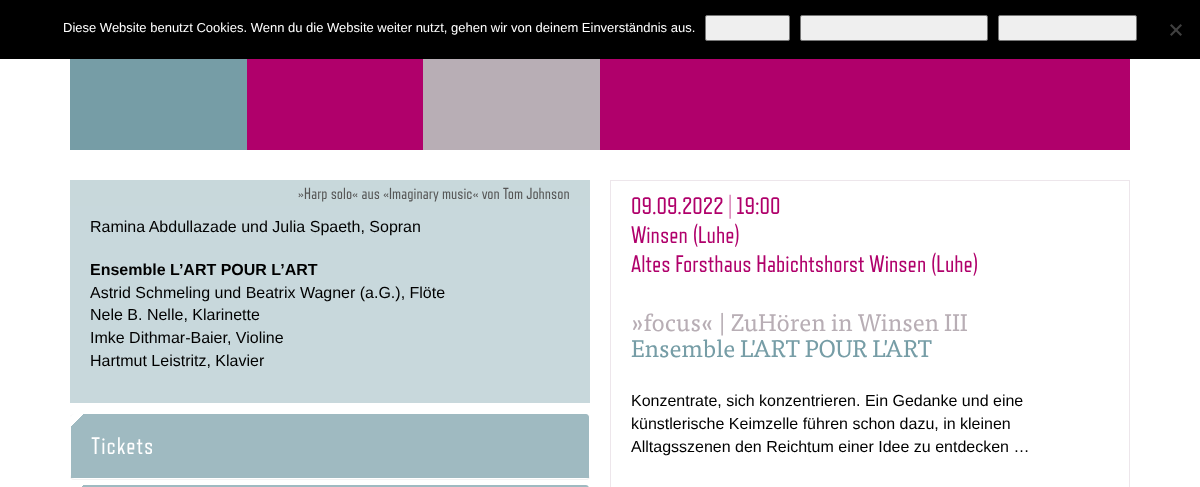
<svg xmlns="http://www.w3.org/2000/svg" width="1200" height="487" viewBox="0 0 1200 487">
  <style>
    .t1 { font: 13px Liberation Sans; fill: #fff; }
    .t2 { font: 16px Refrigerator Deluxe; fill: #555; }
    .t3 { font: 16px Liberation Sans; fill: #000; }
    .t4 { font: bold 16px Liberation Sans; fill: #000; }
    .t5 { font: 24px Refrigerator Deluxe; letter-spacing: 1px; fill: #fff; }
    .t6 { font: 24px Refrigerator Deluxe; fill: #b0006b; }
    .t7 { font: 24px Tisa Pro; fill: #b8aeb5; }
    .t8 { font: 24px Tisa Pro; fill: #769da6; }
  </style>
  <defs>
    <linearGradient id="g1" gradientUnits="userSpaceOnUse" x1="77" y1="-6.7" x2="240" y2="157"><stop offset="0.03" stop-color="#fff"/><stop offset="0.03" stop-color="#769da6"/></linearGradient>
    <linearGradient id="g2" gradientUnits="userSpaceOnUse" x1="254" y1="-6.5" x2="417" y2="157"><stop offset="0.03" stop-color="#fff"/><stop offset="0.03" stop-color="#b0006b"/></linearGradient>
    <linearGradient id="g3" gradientUnits="userSpaceOnUse" x1="430" y1="-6.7" x2="593" y2="157"><stop offset="0.03" stop-color="#fff"/><stop offset="0.03" stop-color="#b8aeb5"/></linearGradient>
    <linearGradient id="g4" gradientUnits="userSpaceOnUse" x1="184" y1="301" x2="476" y2="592"><stop offset="0.02" stop-color="#fff"/><stop offset="0.02" stop-color="#9fbac1"/></linearGradient>
    <linearGradient id="g5" gradientUnits="userSpaceOnUse" x1="184" y1="372" x2="476" y2="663"><stop offset="0.02" stop-color="#fff"/><stop offset="0.02" stop-color="#9fbac1"/></linearGradient>
  </defs>
  <rect width="100%" height="100%" fill="#fff"/>
  <rect x="0" y="0" width="1200" height="59" fill="#000"/>
  <text x="63" y="32" class="t1">Diese Website benutzt Cookies. Wenn du die Website weiter nutzt, gehen wir von deinem Einverständnis aus.</text>
  <rect x="705.5" y="15.5" width="84" height="25" rx="1.5" fill="#efefef" stroke="#767676"/>
  <rect x="800.5" y="15.5" width="187" height="25" rx="1.5" fill="#efefef" stroke="#767676"/>
  <rect x="998.5" y="15.5" width="138" height="25" rx="1.5" fill="#efefef" stroke="#767676"/>
  <path d="M1180.5 24L1182 25.5L1171.5 36L1170 34.5Z" fill="#404040"/>
  <path d="M1170 25.5L1171.5 24L1182 34.5L1180.5 36Z" fill="#404040"/>
  <rect x="70" y="59" width="177" height="91" fill="url(#g1)"/>
  <rect x="247" y="59" width="176" height="91" fill="url(#g2)"/>
  <rect x="423" y="59" width="177" height="91" fill="url(#g3)"/>
  <rect x="600" y="59" width="530" height="91" fill="#b0006b"/>
  <rect x="70" y="180" width="520" height="26" fill="#c8d8db"/>
  <text x="298" y="199" class="t2">»Harp solo« aus «Imaginary music« von Tom Johnson</text>
  <rect x="70" y="206" width="520" height="197" fill="#c8d8dc"/>
  <text x="90" y="232" class="t3">Ramina Abdullazade und Julia Spaeth, Sopran</text>
  <text x="90" y="275" class="t4">Ensemble L’ART POUR L’ART</text>
  <text x="90" y="298" class="t3">Astrid Schmeling und Beatrix Wagner (a.G.), Flöte</text>
  <text x="90" y="320" class="t3">Nele B. Nelle, Klarinette</text>
  <text x="90" y="343" class="t3">Imke Dithmar-Baier, Violine</text>
  <text x="90" y="366" class="t3">Hartmut Leistritz, Klavier</text>
  <rect x="70" y="414" width="520" height="66" rx="4" fill="#0000000d" filter="blur(0.5px)"/>
  <rect x="70.5" y="413.5" width="519" height="65" rx="3.5" fill="none" stroke="#fff"/>
  <path d="M74 414H586C587.5 414 589 415.5 589 417V478H71V417C71 415.5 72.5 414 74 414Z" fill="url(#g4)"/>
  <text x="91" y="454" class="t5">Tickets</text>
  <path d="M74 485H586C587.5 485 589 486.5 589 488V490H71V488C71 486.5 72.5 485 74 485Z" fill="url(#g5)"/>
  <rect x="610.5" y="180.5" width="519" height="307" fill="none" stroke="#ede6eb"/>
  <text x="631" y="214" class="t6">09.09.2022 | 19:00</text>
  <text x="631" y="243" class="t6">Winsen (Luhe)</text>
  <text x="631" y="272" class="t6">Altes Forsthaus Habichtshorst Winsen (Luhe)</text>
  <text x="631" y="331" class="t7">»focus« | ZuHören in Winsen III</text>
  <text x="631" y="357" class="t8">Ensemble L'ART POUR L'ART</text>
  <text x="631" y="406" class="t3">Konzentrate, sich konzentrieren. Ein Gedanke und eine</text>
  <text x="631" y="429" class="t3">künstlerische Keimzelle führen schon dazu, in kleinen</text>
  <text x="631" y="452" class="t3">Alltagsszenen den Reichtum einer Idee zu entdecken …</text>
</svg>
